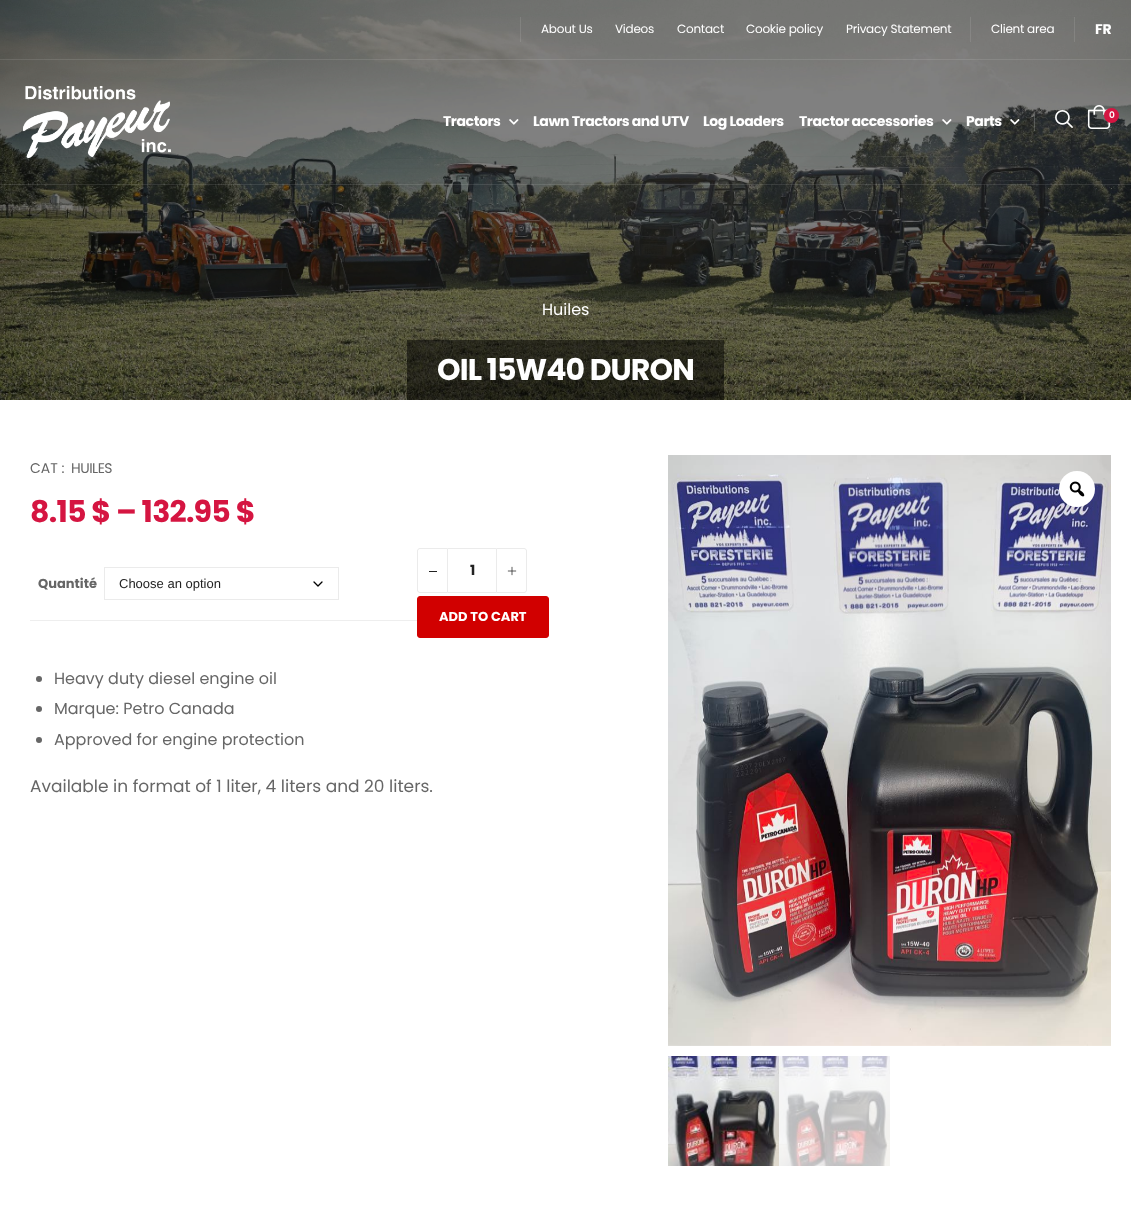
<svg xmlns="http://www.w3.org/2000/svg" width="1131" height="1214" viewBox="0 0 1131 1214">
  <style>
    .t1 { font: 12px Poppins; letter-spacing: -0.25px; fill: #fff; }
    .t2 { font: bold 14px Poppins; letter-spacing: -0.25px; fill: #fff; }
    .t3 { font: bold 14px Poppins; letter-spacing: -0.4px; fill: #fff; }
    .t4 { font: 600 9px Poppins; letter-spacing: -0.4px; fill: #fff; }
    .t5 { font: 16px Poppins; fill: #fff; }
    .t6 { font: bold 30px Poppins; letter-spacing: -0.9px; fill: #fff; }
    .t7 { font: 14px Poppins; fill: #666; }
    .t8 { font: 14px Poppins; letter-spacing: -0.5px; fill: #666; }
    .t9 { font: bold 30px Poppins; letter-spacing: -0.75px; fill: #d51541; }
    .t10 { font: bold 13px Poppins; fill: #666; }
    .t11 { font: 13px Liberation Sans; fill: #222; }
    .t12 { font: bold 14px Poppins; fill: #222; }
    .t13 { font: bold 13px Poppins; fill: #fff; }
    .t14 { font: 16px Poppins; fill: #666; }
    .t15 { font: 17px Poppins; fill: #666; }
  </style>
  <rect width="100%" height="100%" fill="#fff"/>
  <image x="0" y="0" width="1131" height="400" href="images/7.png"/>
  <rect x="0" y="59" width="1131" height="1" fill="#ffffff1a"/>
  <rect x="520" y="17" width="1" height="25" fill="#ffffff1a"/>
  <text x="541" y="33" class="t1">About Us</text>
  <text x="615" y="33" class="t1">Videos</text>
  <text x="677" y="33" class="t1">Contact</text>
  <text x="746" y="33" class="t1">Cookie policy</text>
  <text x="846" y="33" class="t1">Privacy Statement</text>
  <rect x="970" y="17" width="1" height="25" fill="#ffffff1a"/>
  <text x="991" y="33" class="t1">Client area</text>
  <rect x="1074" y="17" width="1" height="25" fill="#ffffff1a"/>
  <text x="1095" y="34" class="t2">FR</text>
  <rect x="0" y="184" width="1131" height="1" fill="#ffffff1a"/>
  <image x="23" y="86" width="148" height="72" href="images/1.png"/>
  <text x="443" y="126" class="t3">Tractors</text>
  <image x="509" y="119" width="10" height="6" href="images/2.png"/>
  <text x="533" y="126" class="t3">Lawn Tractors and UTV</text>
  <text x="703" y="126" class="t3">Log Loaders</text>
  <text x="799" y="126" class="t3">Tractor accessories</text>
  <image x="942" y="119" width="10" height="6" href="images/3.png"/>
  <text x="966" y="126" class="t3">Parts</text>
  <image x="1010" y="119" width="10" height="6" href="images/4.png"/>
  <rect x="1034" y="112" width="1" height="19" fill="#ffffff33"/>
  <image x="1055" y="110" width="18" height="18" href="images/5.png"/>
  <image x="1087" y="105" width="24" height="24" href="images/6.png"/>
  <circle cx="1111.5" cy="115.5" r="7.5" fill="#d51541"/>
  <text x="1109" y="118" class="t4">0</text>
  <text x="542" y="315" class="t5">Huiles</text>
  <rect x="407" y="340" width="317" height="60" fill="#00000080"/>
  <text x="437" y="380" class="t6">OIL 15W40 DURON</text>
  <text x="30" y="473" class="t7">CAT :</text>
  <text x="71" y="473" class="t8">HUILES</text>
  <text x="30" y="522" class="t9">8.15 $ – 132.95 $</text>
  <rect x="30" y="620" width="388" height="1" fill="#eee"/>
  <text x="38" y="588" class="t10">Quantité</text>
  <path d="M314 582L318 586L322 582" fill="none" stroke="#000" stroke-width="1.3" stroke-linecap="round" stroke-linejoin="round"/>
  <rect x="104.5" y="567.5" width="234" height="32" fill="none" stroke="#ebebeb"/>
  <text x="119" y="588" class="t11">Choose an option</text>
  <path d="M420 548.5H447.5V592.5H420C418.5 592.5 417.5 591.5 417.5 590V551C417.5 549.5 418.5 548.5 420 548.5Z" fill="none" stroke="#ebebeb"/>
  <rect x="429" y="571" width="8" height="1" fill="#222"/>
  <rect x="448" y="548" width="48" height="1" fill="#ebebeb"/>
  <rect x="448" y="592" width="48" height="1" fill="#ebebeb"/>
  <text x="470" y="575" class="t12">1</text>
  <path d="M496.5 548.5H524C525.5 548.5 526.5 549.5 526.5 551V590C526.5 591.5 525.5 592.5 524 592.5H496.5Z" fill="none" stroke="#ebebeb"/>
  <image x="507" y="566" width="10" height="10" href="images/8.png"/>
  <rect x="417.5" y="596.5" width="131" height="41" rx="2.5" fill="#d10000" stroke="#d10000"/>
  <text x="439" y="621" class="t13">ADD TO CART</text>
  <circle cx="39" cy="679" r="3" fill="#666"/>
  <text x="54" y="684" class="t14">Heavy duty diesel engine oil</text>
  <circle cx="39" cy="709" r="3" fill="#666"/>
  <text x="54" y="714" class="t14">Marque: Petro Canada</text>
  <circle cx="39" cy="740" r="3" fill="#666"/>
  <text x="54" y="745" class="t14">Approved for engine protection</text>
  <text x="30" y="792" class="t15">Available in format of 1 liter, 4 liters and 20 liters.</text>
  <image x="668" y="455" width="443" height="591" href="images/9.png"/>
  <circle cx="1077" cy="489" r="18" fill="#fff"/>
  <image x="1069" y="481" width="16" height="16" href="images/10.png"/>
  <image x="668" y="1056" width="111" height="110" href="images/11.png"/>
  <image x="779" y="1056" width="111" height="110" href="images/12.png"/>
</svg>
